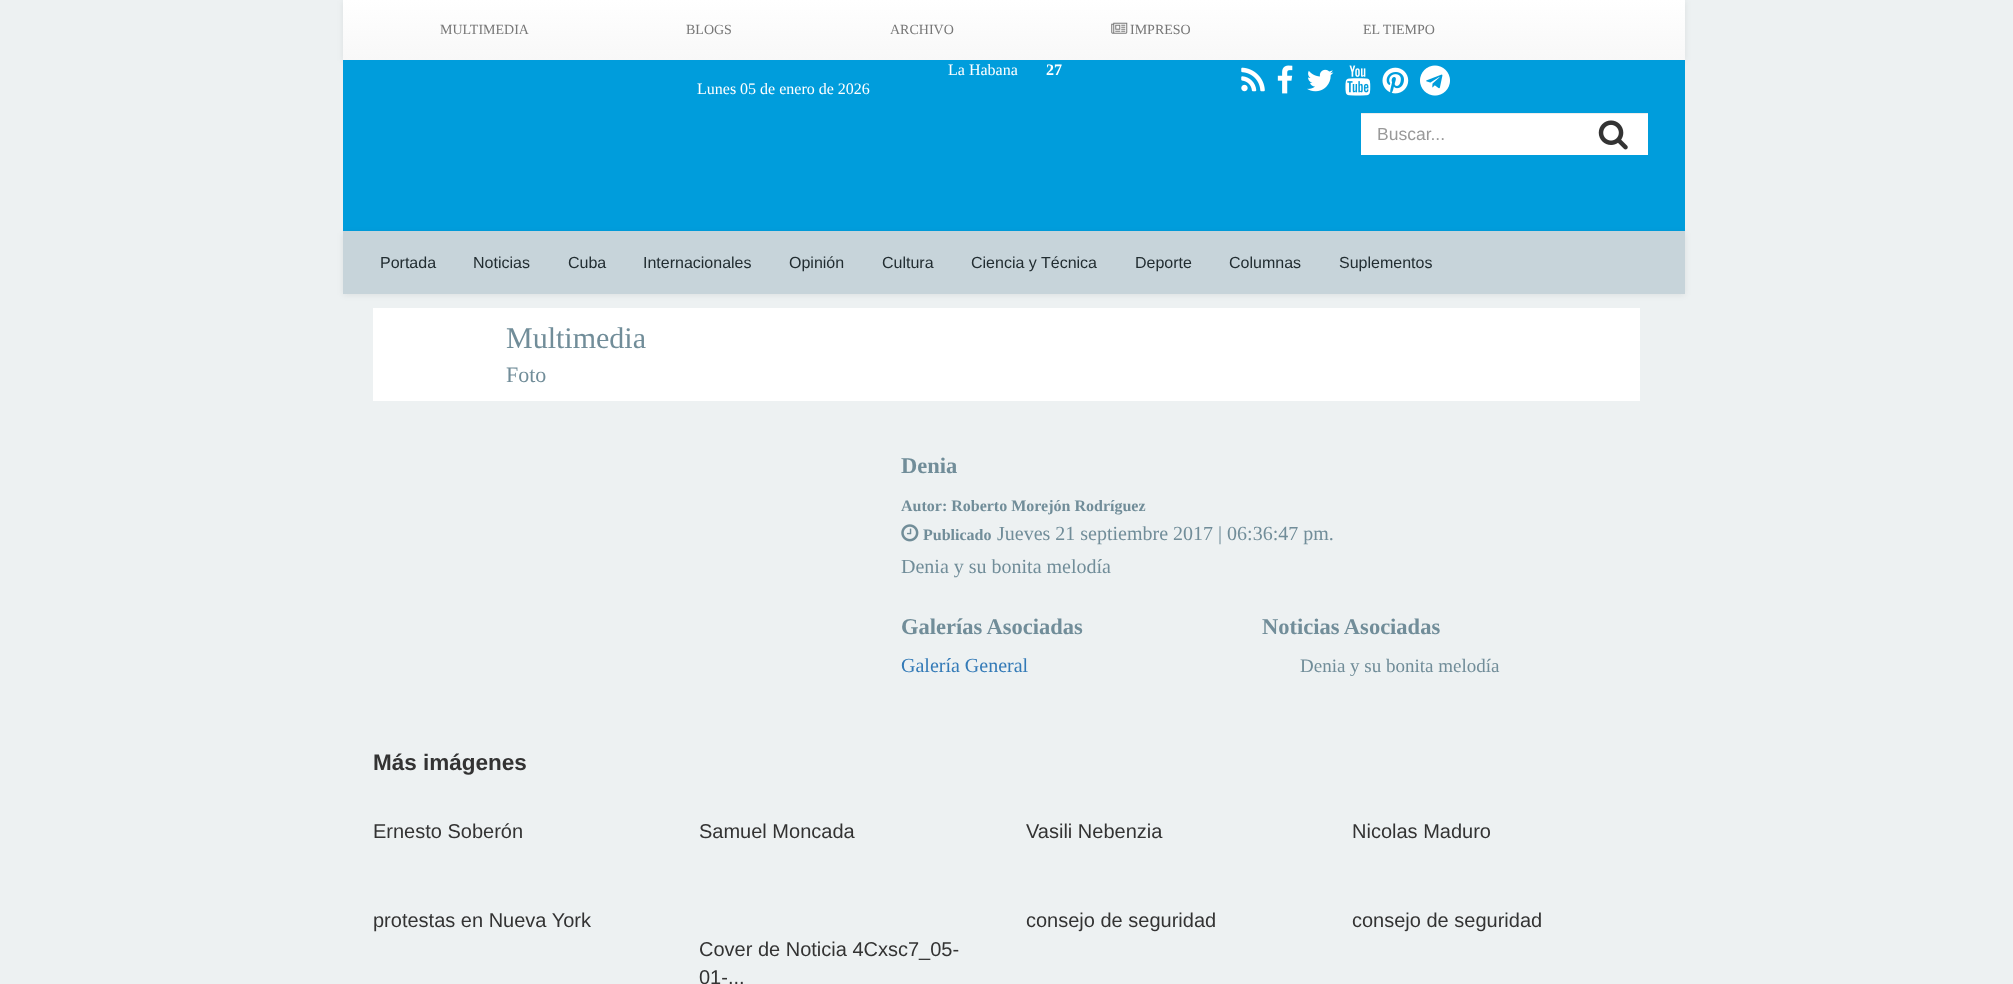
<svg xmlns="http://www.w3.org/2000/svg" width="2013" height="984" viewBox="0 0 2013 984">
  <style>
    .t1 { font: 14px Liberation Serif; fill: #777; }
    .t2 { font: 16px Liberation Serif; fill: #fff; }
    .t3 { font: bold 16px Liberation Serif; fill: #fff; }
    .t4 { font: 17.5px Liberation Sans; fill: #999; }
    .t5 { font: 16px Liberation Sans; fill: #222d31; }
    .t6 { font: 30px Liberation Serif; fill: #718d99; }
    .t7 { font: 22px Liberation Serif; fill: #718d99; }
    .t8 { font: bold 22.5px Liberation Serif; fill: #718d99; }
    .t9 { font: bold 16px Liberation Serif; fill: #718d99; }
    .t10 { font: 20px Liberation Serif; fill: #718d99; }
    .t11 { font: 20px Liberation Serif; fill: #337ab7; }
    .t12 { font: 19px Liberation Serif; fill: #718d99; }
    .t13 { font: bold 22.5px Liberation Sans; fill: #333; }
    .t14 { font: 20px Liberation Sans; fill: #333; }
  </style>
  <defs>
    <linearGradient id="g1" gradientUnits="userSpaceOnUse" x1="1014" y1="0" x2="1014" y2="60"><stop offset="0" stop-color="#fff"/><stop offset="1" stop-color="#f8f8f8"/></linearGradient>
  </defs>
  <rect width="100%" height="100%" fill="#edf1f2"/>
  <rect x="343" y="1" width="1342" height="60" fill="#00000012" filter="blur(3px)"/>
  <rect x="343" y="0" width="1342" height="60" fill="url(#g1)"/>
  <text x="440" y="34" class="t1">MULTIMEDIA</text>
  <text x="686" y="34" class="t1">BLOGS</text>
  <text x="890" y="34" class="t1">ARCHIVO</text>
  <image x="1111" y="22" width="17" height="12" href="images/1.png"/>
  <text x="1130" y="34" class="t1">IMPRESO</text>
  <text x="1363" y="34" class="t1">EL TIEMPO</text>
  <rect x="343" y="60" width="1342" height="171" fill="#009ddc"/>
  <text x="697" y="94" class="t2">Lunes 05 de enero de 2026</text>
  <text x="948" y="75" class="t2">La Habana</text>
  <text x="1046" y="75" class="t3">27</text>
  <image x="1241" y="67" width="24" height="25" href="images/2.png"/>
  <image x="1277" y="65" width="16" height="29" href="images/3.png"/>
  <image x="1307" y="69" width="27" height="23" href="images/4.png"/>
  <image x="1345" y="65" width="26" height="31" href="images/5.png"/>
  <image x="1382" y="67" width="27" height="27" href="images/6.png"/>
  <image x="1420" y="65" width="30" height="31" href="images/7.png"/>
  <rect x="1361" y="114" width="287" height="41" fill="#fff"/>
  <rect x="1361" y="113" width="287" height="1" fill="#ececec"/>
  <text x="1377" y="140" class="t4">Buscar...</text>
  <image x="1598" y="120" width="30" height="30" href="images/8.png"/>
  <rect x="343" y="233" width="1342" height="62" fill="#00000012" filter="blur(3px)"/>
  <rect x="343" y="231" width="1342" height="63" fill="#c7d4da"/>
  <text x="380" y="268" class="t5">Portada</text>
  <text x="473" y="268" class="t5">Noticias</text>
  <text x="568" y="268" class="t5">Cuba</text>
  <text x="643" y="268" class="t5">Internacionales</text>
  <text x="789" y="268" class="t5">Opinión</text>
  <text x="882" y="268" class="t5">Cultura</text>
  <text x="971" y="268" class="t5">Ciencia y Técnica</text>
  <text x="1135" y="268" class="t5">Deporte</text>
  <text x="1229" y="268" class="t5">Columnas</text>
  <text x="1339" y="268" class="t5">Suplementos</text>
  <rect x="373" y="308" width="1267" height="93" fill="#fff"/>
  <text x="506" y="348" class="t6">Multimedia</text>
  <text x="506" y="382" class="t7">Foto</text>
  <text x="901" y="473" class="t8">Denia</text>
  <text x="901" y="511" class="t9">Autor: Roberto Morejón Rodríguez</text>
  <image x="901" y="524" width="18" height="18" href="images/9.png"/>
  <text x="923" y="540" class="t9">Publicado</text>
  <text x="997" y="540" class="t10">Jueves 21 septiembre 2017 | 06:36:47 pm.</text>
  <text x="901" y="573" class="t10">Denia y su bonita melodía</text>
  <text x="901" y="634" class="t8">Galerías Asociadas</text>
  <text x="901" y="672" class="t11">Galería General</text>
  <text x="1262" y="634" class="t8">Noticias Asociadas</text>
  <text x="1300" y="672" class="t12">Denia y su bonita melodía</text>
  <text x="373" y="770" class="t13">Más imágenes</text>
  <text x="373" y="838" class="t14">Ernesto Soberón</text>
  <text x="699" y="838" class="t14">Samuel Moncada</text>
  <text x="1026" y="838" class="t14">Vasili Nebenzia</text>
  <text x="1352" y="838" class="t14">Nicolas Maduro</text>
  <text x="373" y="927" class="t14">protestas en Nueva York</text>
  <text x="1026" y="927" class="t14">consejo de seguridad</text>
  <text x="1352" y="927" class="t14">consejo de seguridad</text>
  <text x="699" y="956" class="t14">Cover de Noticia 4Cxsc7_05-</text>
  <text x="699" y="984" class="t14">01-...</text>
</svg>
